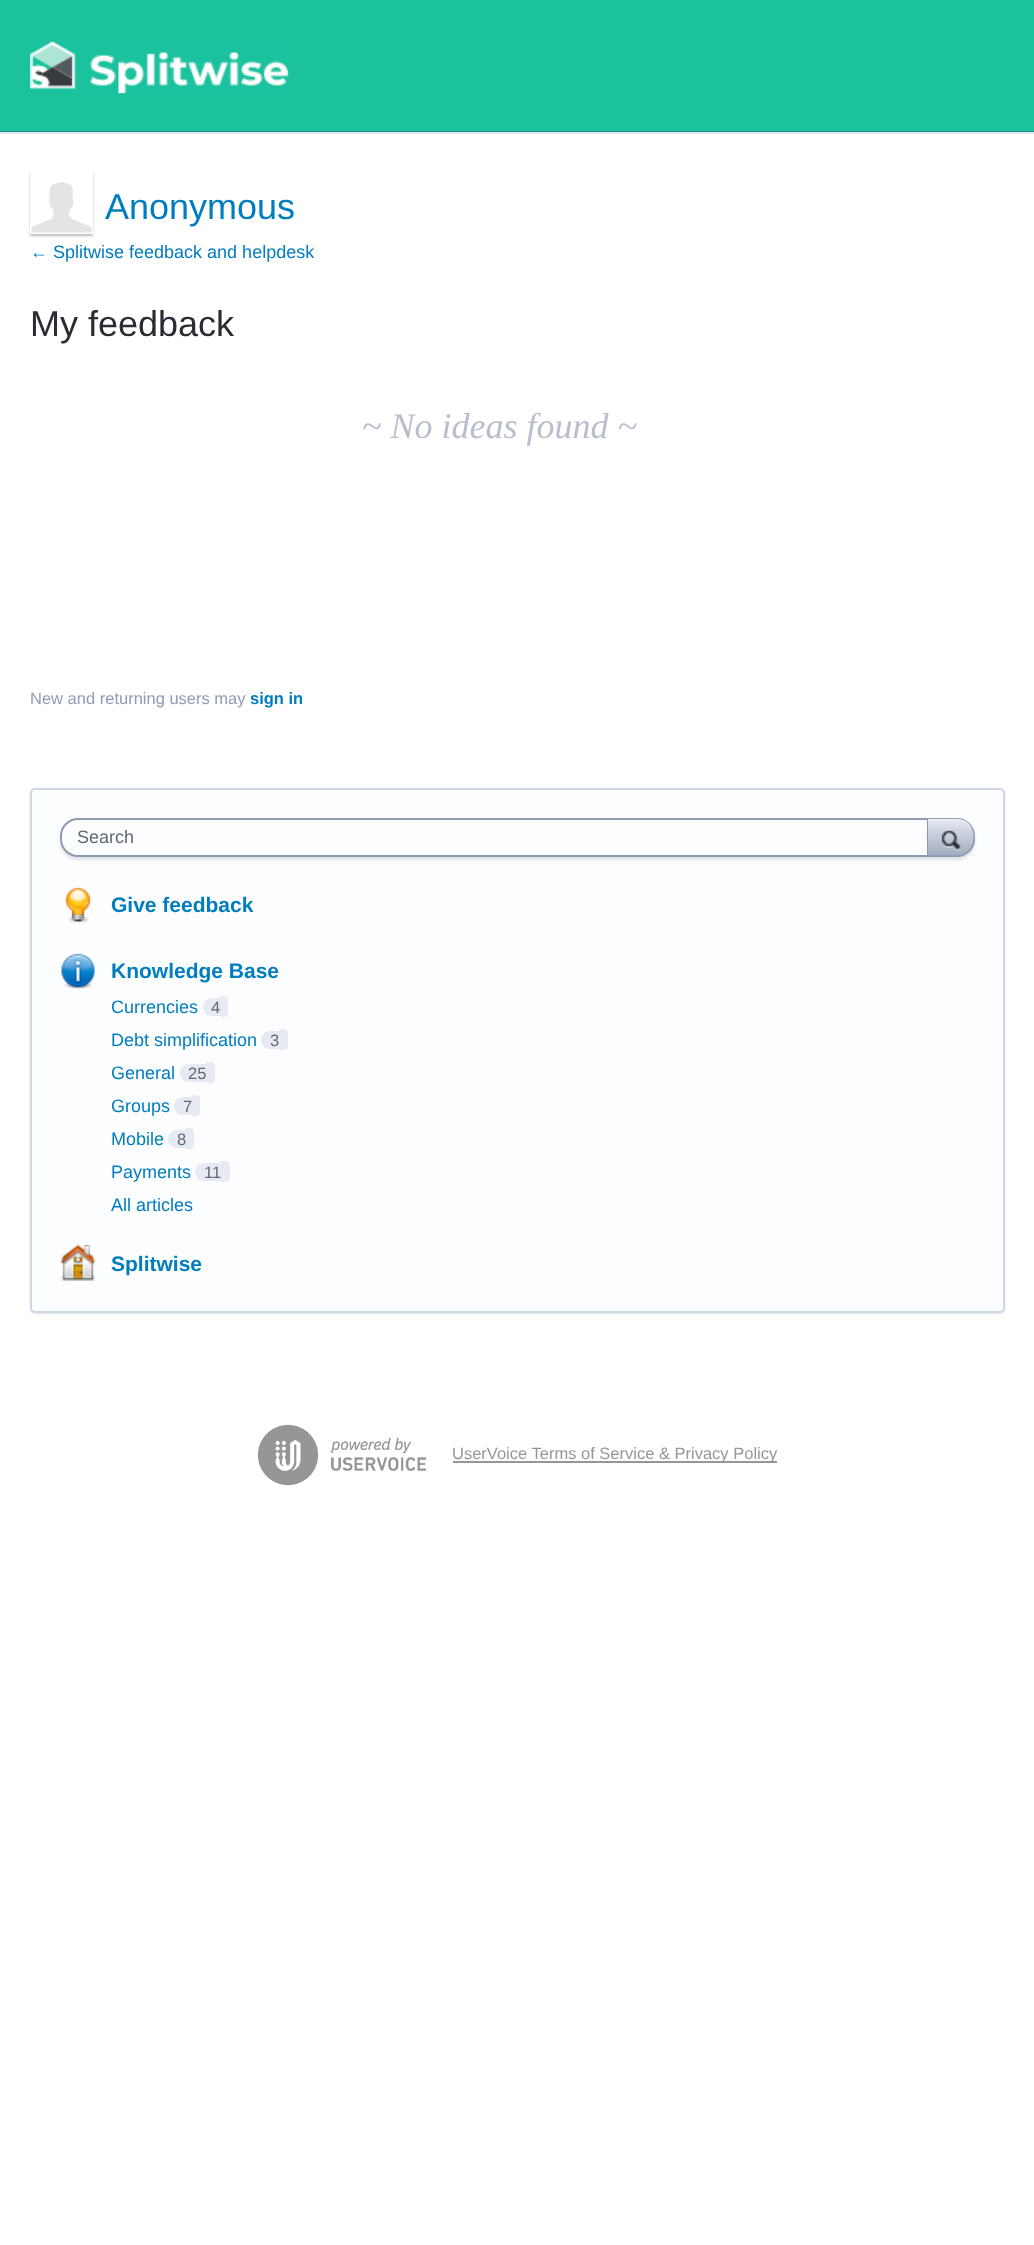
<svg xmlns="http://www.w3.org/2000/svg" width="1034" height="2245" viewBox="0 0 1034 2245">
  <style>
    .t1 { font: 36px Liberation Sans; fill: #007dbf; }
    .t2 { font: 18px Liberation Sans; fill: #007dbf; }
    .t3 { font: 36px Liberation Sans; fill: #292c33; }
    .t4 { font: italic 36px Liberation Serif; fill: #b8becc; }
    .t5 { font: 16.5px Liberation Sans; fill: #8f9bb3; }
    .t6 { font: bold 16.5px Liberation Sans; fill: #007dbf; }
    .t7 { font: 18px Liberation Sans; fill: #616973; }
    .t8 { font: bold 21px Liberation Sans; fill: #007dbf; }
    .t9 { font: 16.5px Liberation Sans; fill: #616973; }
    .t10 { font: 16.5px Liberation Sans; fill: #969696; }
  </style>
  <defs>
    <clipPath id="clip1"><path d="M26 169H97V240H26ZM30 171H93V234H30Z" clip-rule="evenodd"/></clipPath>
    <clipPath id="clip2"><rect x="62" y="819" width="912" height="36" rx="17"/></clipPath>
    <linearGradient id="g1" gradientUnits="userSpaceOnUse" x1="929" y1="819" x2="929" y2="855"><stop offset="0" stop-color="#e6eaf2"/><stop offset="1" stop-color="#a2acbf"/></linearGradient>
  </defs>
  <rect width="100%" height="100%" fill="#fff"/>
  <rect x="0" y="0" width="1034" height="131" fill="#1cc29e"/>
  <rect x="0" y="131" width="1034" height="1" fill="#159277"/>
  <image x="30" y="41" width="259" height="53" href="images/1.png"/>
  <rect x="0" y="132" width="1034" height="2" fill="#e3e8f2"/>
  <g clip-path="url(#clip1)">
    <rect x="30" y="173" width="63" height="63" fill="#00000040" filter="blur(1px)"/>
  </g>
  <image x="31" y="182" width="61" height="51" href="images/2.png"/>
  <text x="105" y="219" class="t1">Anonymous</text>
  <text x="30" y="258" class="t2">← Splitwise feedback and helpdesk</text>
  <text x="30" y="336" class="t3">My feedback</text>
  <text x="362" y="438" class="t4">~ No ideas found ~</text>
  <text x="30" y="704" class="t5">New and returning users may</text>
  <text x="250" y="704" class="t6">sign in</text>
  <rect x="30" y="789" width="975" height="525" rx="5" fill="#0000001a" filter="blur(1px)"/>
  <rect x="31" y="789" width="973" height="523" rx="4" fill="#fcfdff" stroke="#cfd7e6" stroke-width="2"/>
  <rect x="60" y="821" width="915" height="39" rx="18" fill="#0000001a" filter="blur(1.5px)"/>
  <rect x="61" y="819" width="913" height="37" rx="17" fill="#fcfdff" stroke="#8f9bb3" stroke-width="2"/>
  <text x="77" y="843" class="t7">Search</text>
  <g clip-path="url(#clip2)">
    <rect x="927" y="819" width="48" height="38" rx="18" fill="#0000001a" filter="blur(1.5px)"/>
  </g>
  <path d="M928 819V855H947C953 855 958 856 963 854C980 846 976 819 957 819Z" fill="url(#g1)"/>
  <path d="M928 819H957C965 819 971 824 973 832C971 825 964 820 957 820H928Z" fill="#ffffff80"/>
  <path d="M974 837C974 847 967 855 957 855C966 855 974 847 974 837Z" fill="#8f9bb3"/>
  <rect x="927" y="819" width="1" height="36" fill="#8f9bb3"/>
  <image x="941" y="830" width="20" height="21" href="images/3.png"/>
  <image x="65" y="887" width="26" height="36" href="images/4.png"/>
  <text x="111" y="912" class="t8">Give feedback</text>
  <image x="61" y="953" width="34" height="36" href="images/5.png"/>
  <text x="111" y="978" class="t8">Knowledge Base</text>
  <text x="111" y="1013" class="t2">Currencies</text>
  <path d="M212 998H221V1016H212C207 1016 203 1012 203 1007C203 1002 207 998 212 998Z" fill="#e7eaf2"/>
  <text x="211" y="1013" class="t9">4</text>
  <path d="M221 996H224.5C226.5 996 228 997.5 228 999.5V1013.5C228 1015.5 226.5 1017 224.5 1017H221Z" fill="#e7eaf2"/>
  <text x="111" y="1046" class="t2">Debt simplification</text>
  <path d="M270 1031H279V1049H270C265 1049 261 1045 261 1040C261 1035 265 1031 270 1031Z" fill="#e7eaf2"/>
  <text x="270" y="1046" class="t9">3</text>
  <path d="M279 1029H283.5C286 1029 288 1031 288 1033.5V1045.5C288 1048 286 1050 283.5 1050H279Z" fill="#e7eaf2"/>
  <text x="111" y="1079" class="t2">General</text>
  <path d="M189 1064H206V1082H189C184 1082 180 1078 180 1073C180 1068 184 1064 189 1064Z" fill="#e7eaf2"/>
  <text x="188" y="1079" class="t9">25</text>
  <path d="M206 1062H210.5C213 1062 215 1064 215 1066.5V1078.5C215 1081 213 1083 210.5 1083H206Z" fill="#e7eaf2"/>
  <text x="111" y="1112" class="t2">Groups</text>
  <path d="M183 1097H192V1115H183C178 1115 174 1111 174 1106C174 1101 178 1097 183 1097Z" fill="#e7eaf2"/>
  <text x="183" y="1112" class="t9">7</text>
  <path d="M192 1095H196C198 1095 200 1097 200 1099V1112C200 1114 198 1116 196 1116H192Z" fill="#e7eaf2"/>
  <text x="111" y="1145" class="t2">Mobile</text>
  <path d="M177 1130H186V1148H177C172 1148 168 1144 168 1139C168 1134 172 1130 177 1130Z" fill="#e7eaf2"/>
  <text x="177" y="1145" class="t9">8</text>
  <path d="M186 1128H190C192 1128 194 1130 194 1132V1145C194 1147 192 1149 190 1149H186Z" fill="#e7eaf2"/>
  <text x="111" y="1178" class="t2">Payments</text>
  <path d="M204 1163H221V1181H204C199 1181 195 1177 195 1172C195 1167 199 1163 204 1163Z" fill="#e7eaf2"/>
  <text x="204" y="1178" class="t9">11</text>
  <path d="M221 1161H225.5C228 1161 230 1163 230 1165.5V1177.5C230 1180 228 1182 225.5 1182H221Z" fill="#e7eaf2"/>
  <text x="111" y="1211" class="t2">All articles</text>
  <image x="61" y="1245" width="35" height="36" href="images/6.png"/>
  <text x="111" y="1271" class="t8">Splitwise</text>
  <image x="258" y="1425" width="168" height="60" href="images/7.png"/>
  <rect x="453" y="1461" width="324" height="2" fill="#969696"/>
  <text x="452" y="1459" class="t10">UserVoice Terms of Service &amp; Privacy Policy</text>
</svg>
